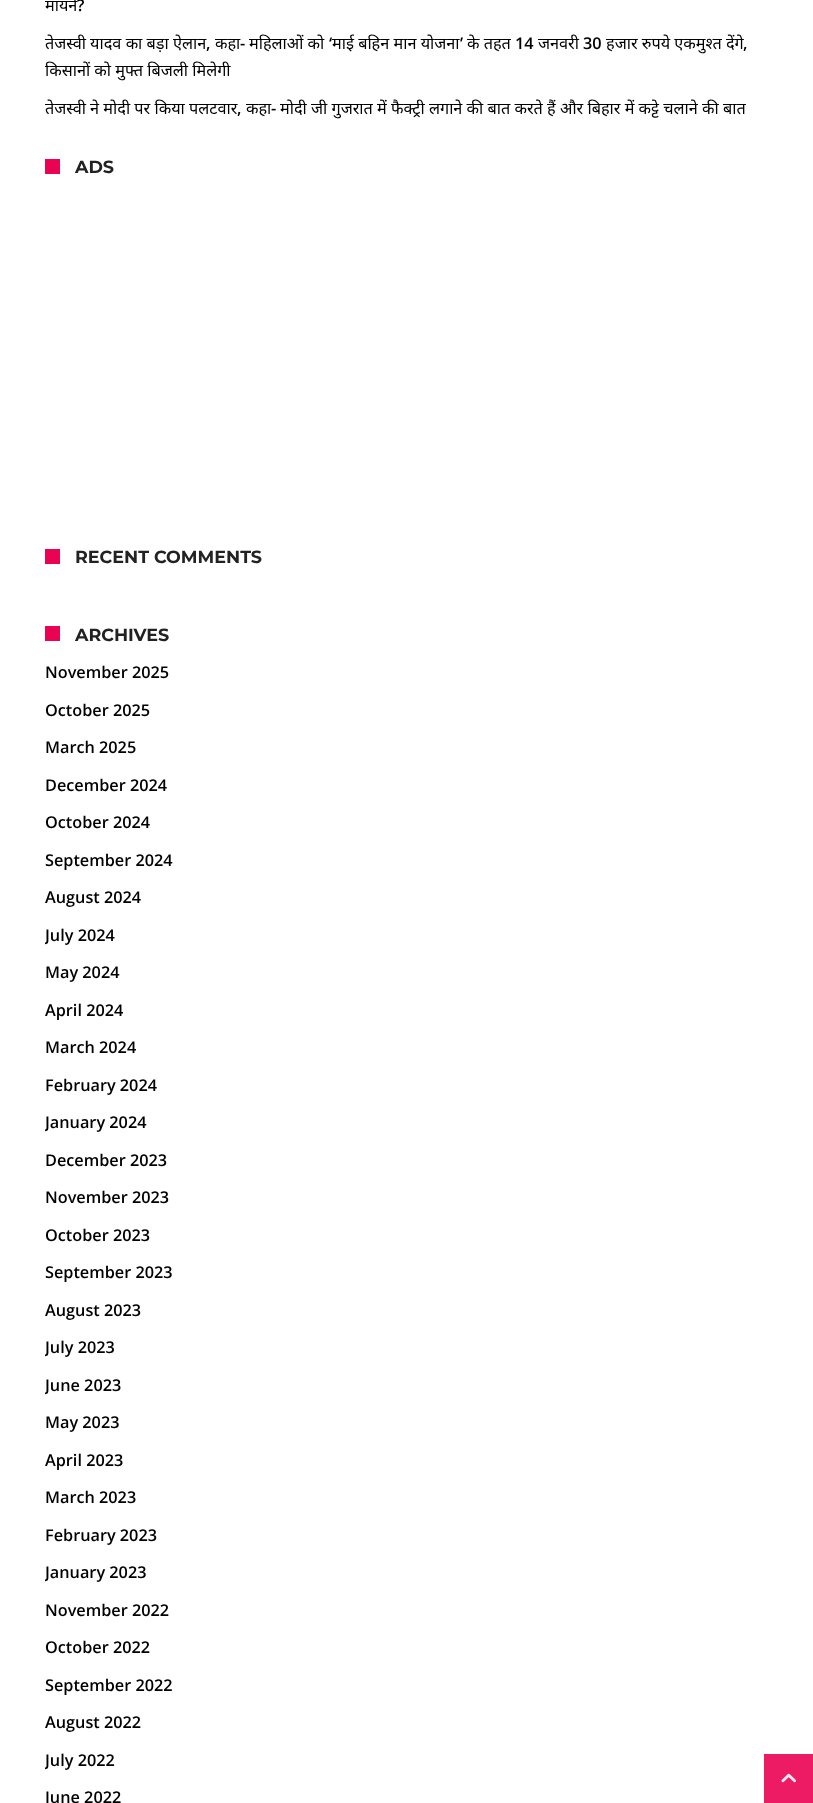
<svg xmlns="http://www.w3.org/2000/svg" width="813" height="1803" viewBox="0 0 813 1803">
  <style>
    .t1 { font: 16.25px Noto Sans; fill: #000; }
    .t2 { font: 600 16.25px Open Sans; fill: #000; }
    .t3 { font: bold 17.5px Montserrat; fill: #222; }
  </style>
  <defs>
    <clipPath id="clip1"><rect x="45" y="916" width="724" height="38"/></clipPath>
    <clipPath id="clip2"><rect x="45" y="1104" width="724" height="37"/></clipPath>
    <clipPath id="clip3"><rect x="45" y="1329" width="724" height="37"/></clipPath>
    <clipPath id="clip4"><rect x="45" y="1366" width="724" height="38"/></clipPath>
    <clipPath id="clip5"><rect x="45" y="1554" width="724" height="37"/></clipPath>
    <clipPath id="clip6"><rect x="45" y="1741" width="724" height="38"/></clipPath>
  </defs>
  <rect width="100%" height="100%" fill="#fff"/>
  <text x="45" y="11" class="t1">मायने</text>
  <text x="77" y="11" class="t2">?</text>
  <text x="45" y="49" class="t1">तेजस्वी यादव का बड़ा ऐलान</text>
  <text x="249" y="49" class="t1">महिलाओं को</text>
  <text x="329" y="49" class="t2">‘</text>
  <text x="332" y="49" class="t1">माई बहिन मान योजना</text>
  <text x="460" y="49" class="t2">’</text>
  <text x="467" y="49" class="t1">के तहत</text>
  <text x="538" y="49" class="t1">जनवरी</text>
  <text x="606" y="49" class="t1">हजार रुपये एकमुश्त देंगे</text>
  <text x="215" y="49" class="t1">कहा</text>
  <text x="240" y="49" class="t2">-</text>
  <text x="515" y="49" class="t2">14</text>
  <text x="583" y="49" class="t2">30</text>
  <text x="206" y="49" class="t2">,</text>
  <text x="743" y="49" class="t2">,</text>
  <text x="45" y="76" class="t1">किसानों को मुफ्त बिजली मिलेगी</text>
  <text x="45" y="114" class="t1">तेजस्वी ने मोदी पर किया पलटवार</text>
  <text x="246" y="114" class="t1">कहा</text>
  <text x="271" y="114" class="t2">-</text>
  <text x="280" y="114" class="t1">मोदी जी गुजरात में फैक्ट्री लगाने की बात करते हैं और बिहार में कट्टे चलाने की बात</text>
  <text x="237" y="114" class="t2">,</text>
  <rect x="45" y="159" width="15" height="15" fill="#ea0253"/>
  <text x="75" y="173" class="t3">ADS</text>
  <rect x="45" y="549" width="15" height="15" fill="#ea0253"/>
  <text x="75" y="563" class="t3">RECENT COMMENTS</text>
  <rect x="45" y="626" width="15" height="15" fill="#ea0253"/>
  <text x="75" y="641" class="t3">ARCHIVES</text>
  <text x="45" y="678" class="t2">November 2025</text>
  <text x="45" y="716" class="t2">October 2025</text>
  <text x="45" y="753" class="t2">March 2025</text>
  <text x="45" y="791" class="t2">December 2024</text>
  <text x="45" y="828" class="t2">October 2024</text>
  <text x="45" y="866" class="t2">September 2024</text>
  <text x="45" y="903" class="t2">August 2024</text>
  <g clip-path="url(#clip1)">
    <text x="45" y="941" class="t2">July 2024</text>
  </g>
  <text x="45" y="978" class="t2">May 2024</text>
  <text x="45" y="1016" class="t2">April 2024</text>
  <text x="45" y="1053" class="t2">March 2024</text>
  <text x="45" y="1091" class="t2">February 2024</text>
  <g clip-path="url(#clip2)">
    <text x="45" y="1128" class="t2">January 2024</text>
  </g>
  <text x="45" y="1166" class="t2">December 2023</text>
  <text x="45" y="1203" class="t2">November 2023</text>
  <text x="45" y="1241" class="t2">October 2023</text>
  <text x="45" y="1278" class="t2">September 2023</text>
  <text x="45" y="1316" class="t2">August 2023</text>
  <g clip-path="url(#clip3)">
    <text x="45" y="1353" class="t2">July 2023</text>
  </g>
  <g clip-path="url(#clip4)">
    <text x="45" y="1391" class="t2">June 2023</text>
  </g>
  <text x="45" y="1428" class="t2">May 2023</text>
  <text x="45" y="1466" class="t2">April 2023</text>
  <text x="45" y="1503" class="t2">March 2023</text>
  <text x="45" y="1541" class="t2">February 2023</text>
  <g clip-path="url(#clip5)">
    <text x="45" y="1578" class="t2">January 2023</text>
  </g>
  <text x="45" y="1616" class="t2">November 2022</text>
  <text x="45" y="1653" class="t2">October 2022</text>
  <text x="45" y="1691" class="t2">September 2022</text>
  <text x="45" y="1728" class="t2">August 2022</text>
  <g clip-path="url(#clip6)">
    <text x="45" y="1766" class="t2">July 2022</text>
  </g>
  <text x="45" y="1803" class="t2">June 2022</text>
  <rect x="764" y="1754" width="49" height="49" fill="#ec1b64"/>
  <image x="781" y="1773" width="15" height="10" href="images/1.png"/>
</svg>
